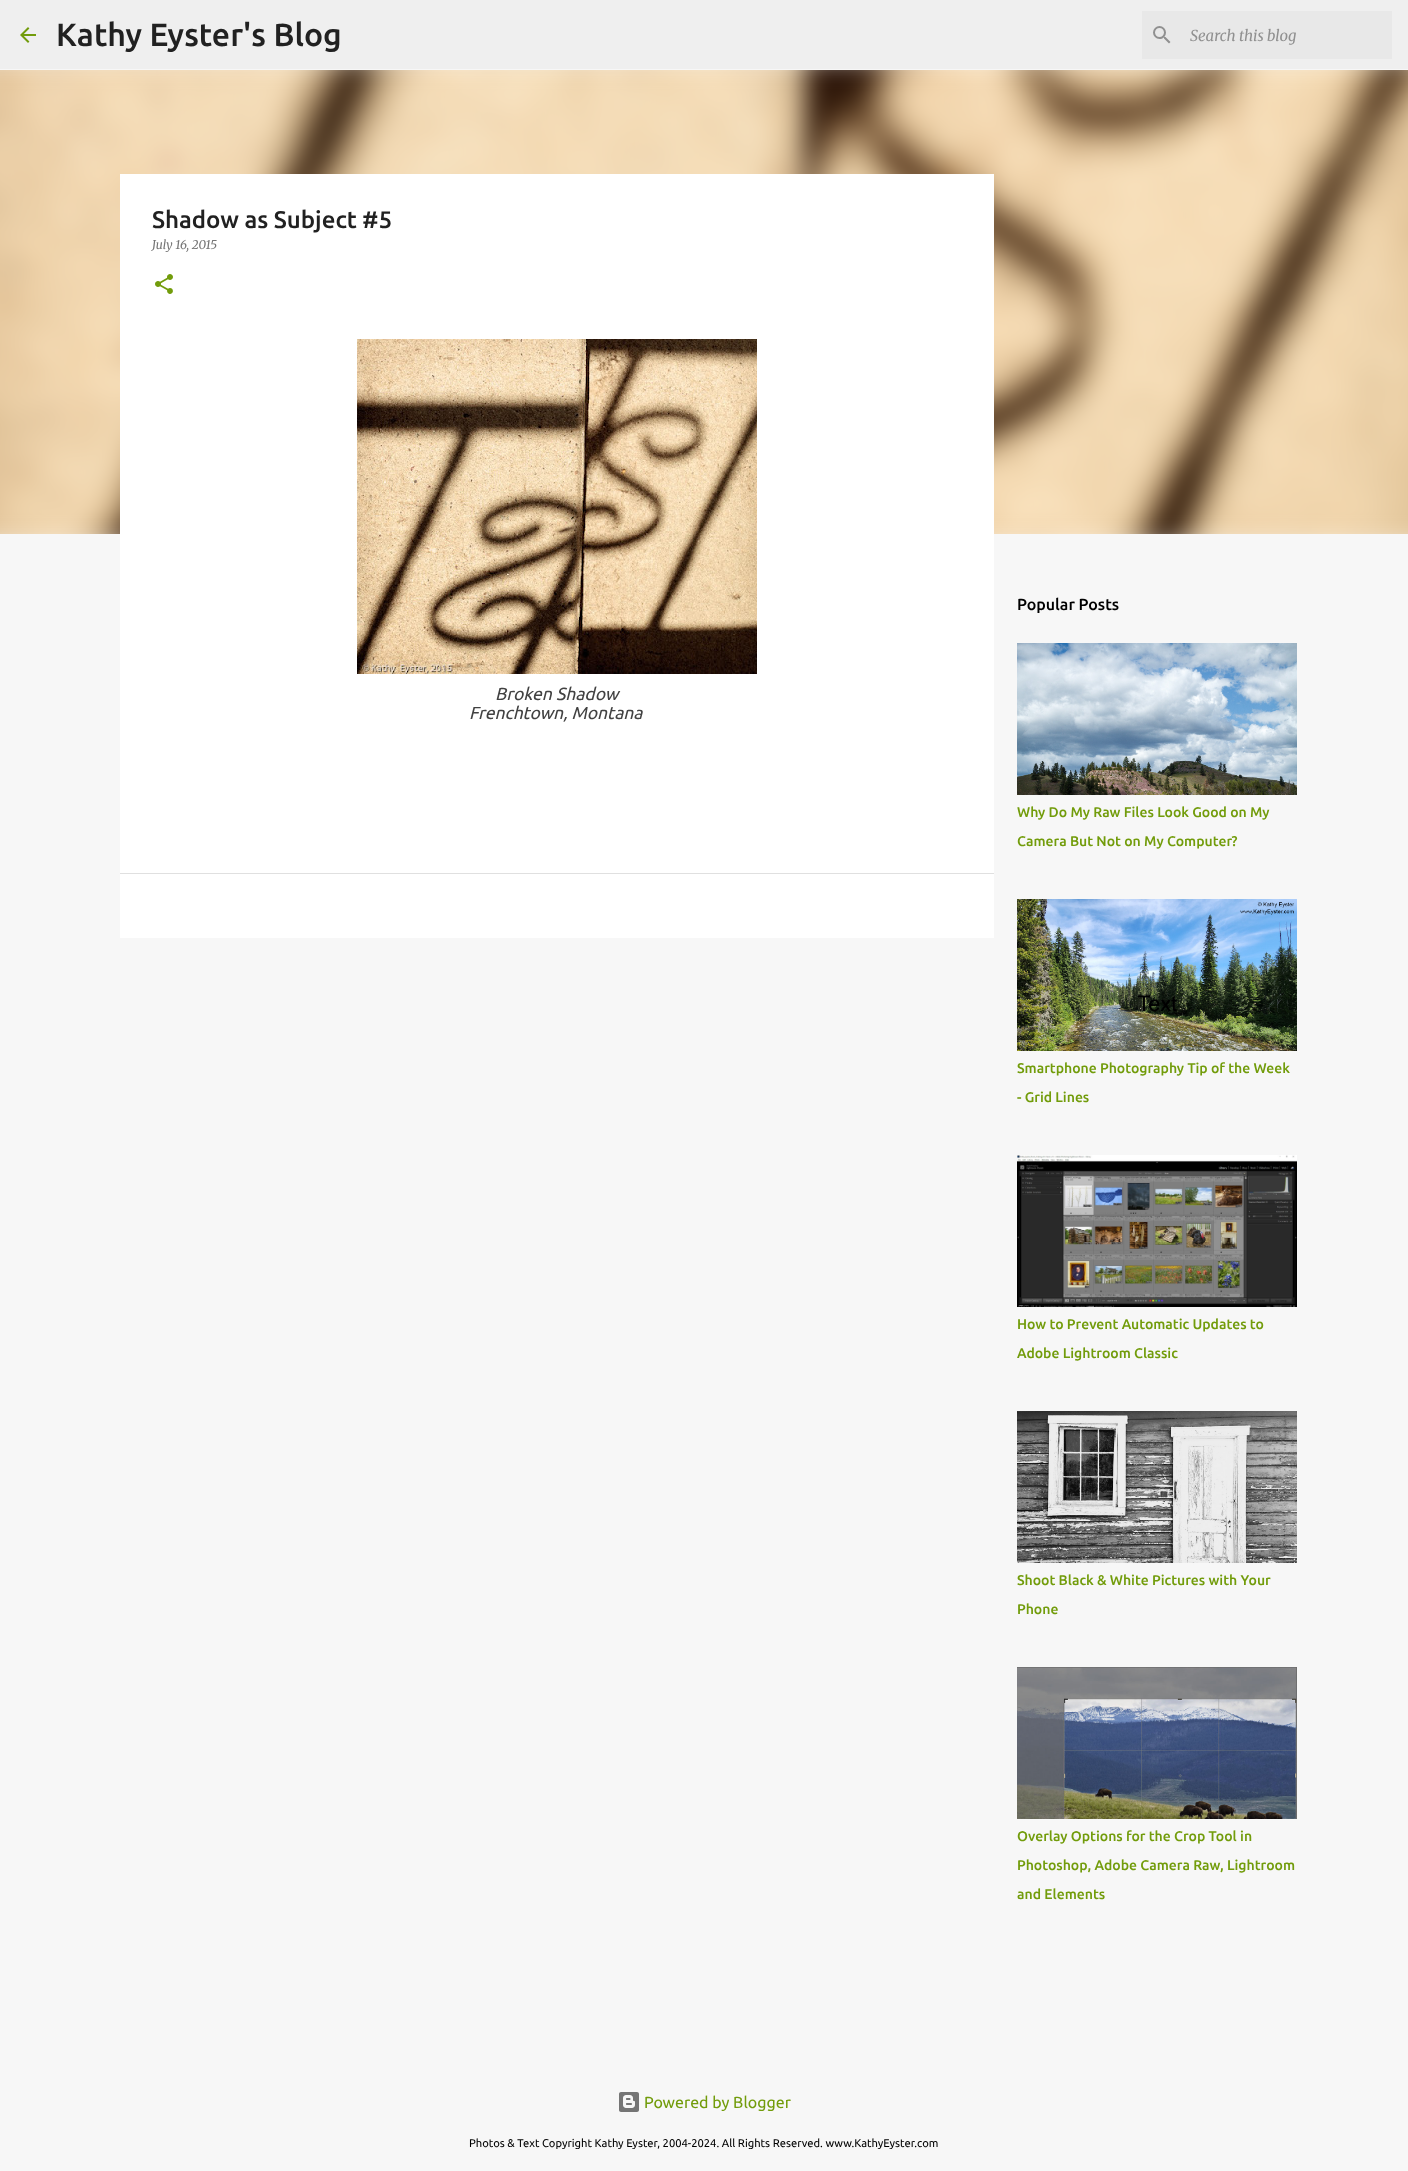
<svg xmlns="http://www.w3.org/2000/svg" width="1408" height="2171" viewBox="0 0 1408 2171">
  <style>
    .t1 { font: 500 32px Ubuntu; fill: #212121; }
    .t2 { font: italic 15px Merriweather; fill: #909090; }
    .t3 { font: 500 24px Ubuntu; fill: #212121; }
    .t4 { font: italic 12px Merriweather; fill: #757575; }
    .t5 { font: italic 17.5px Ubuntu; fill: #424242; }
    .t6 { font: 500 16px Ubuntu; fill: #000; }
    .t7 { font: 500 14px Ubuntu; fill: #729c0b; }
    .t8 { font: 16px Ubuntu; fill: #729c0b; }
    .t9 { font: 11.2px Ubuntu; fill: #000; }
  </style>
  <rect width="100%" height="100%" fill="#f7f7f7"/>
  <rect x="0" y="0" width="1408" height="69" fill="#efefef"/>
  <image x="20" y="27" width="16" height="16" href="images/1.png"/>
  <text x="56" y="46" class="t1">Kathy Eyster's Blog</text>
  <rect x="1142" y="11" width="250" height="48" fill="#e8e8e8"/>
  <image x="1153" y="26" width="18" height="18" href="images/2.png"/>
  <text x="1190" y="41" class="t2">Search this blog</text>
  <image x="0" y="70" width="1408" height="464" href="images/10.png"/>
  <rect x="120" y="174" width="874" height="699" fill="#fff"/>
  <text x="152" y="228" class="t3">Shadow as Subject #5</text>
  <text x="152" y="249" class="t4">July 16, 2015</text>
  <image x="155" y="274" width="18" height="20" href="images/3.png"/>
  <image x="357" y="339" width="400" height="335" href="images/4.png"/>
  <text x="495" y="700" class="t5">Broken Shadow</text>
  <text x="469" y="719" class="t5">Frenchtown, Montana</text>
  <rect x="120" y="874" width="874" height="64" fill="#fff"/>
  <rect x="120" y="873" width="874" height="1" fill="#e0e0e0"/>
  <text x="1017" y="610" class="t6">Popular Posts</text>
  <image x="1017" y="643" width="280" height="152" href="images/5.png"/>
  <text x="1017" y="817" class="t7">Why Do My Raw Files Look Good on My</text>
  <text x="1017" y="846" class="t7">Camera But Not on My Computer?</text>
  <image x="1017" y="899" width="280" height="152" href="images/6.png"/>
  <text x="1017" y="1073" class="t7">Smartphone Photography Tip of the Week</text>
  <text x="1017" y="1102" class="t7">- Grid Lines</text>
  <image x="1017" y="1155" width="280" height="152" href="images/7.png"/>
  <text x="1017" y="1329" class="t7">How to Prevent Automatic Updates to</text>
  <text x="1017" y="1358" class="t7">Adobe Lightroom Classic</text>
  <image x="1017" y="1411" width="280" height="152" href="images/8.png"/>
  <text x="1017" y="1585" class="t7">Shoot Black &amp; White Pictures with Your</text>
  <text x="1017" y="1614" class="t7">Phone</text>
  <image x="1017" y="1667" width="280" height="152" href="images/9.png"/>
  <text x="1017" y="1841" class="t7">Overlay Options for the Crop Tool in</text>
  <text x="1017" y="1870" class="t7">Photoshop, Adobe Camera Raw, Lightroom</text>
  <text x="1017" y="1899" class="t7">and Elements</text>
  <image x="619" y="2092" width="20" height="20" href="images/11.png"/>
  <text x="644" y="2108" class="t8">Powered by Blogger</text>
  <text x="469" y="2147" class="t9">Photos &amp; Text Copyright Kathy Eyster, 2004-2024. All Rights Reserved. www.KathyEyster.com</text>
</svg>
